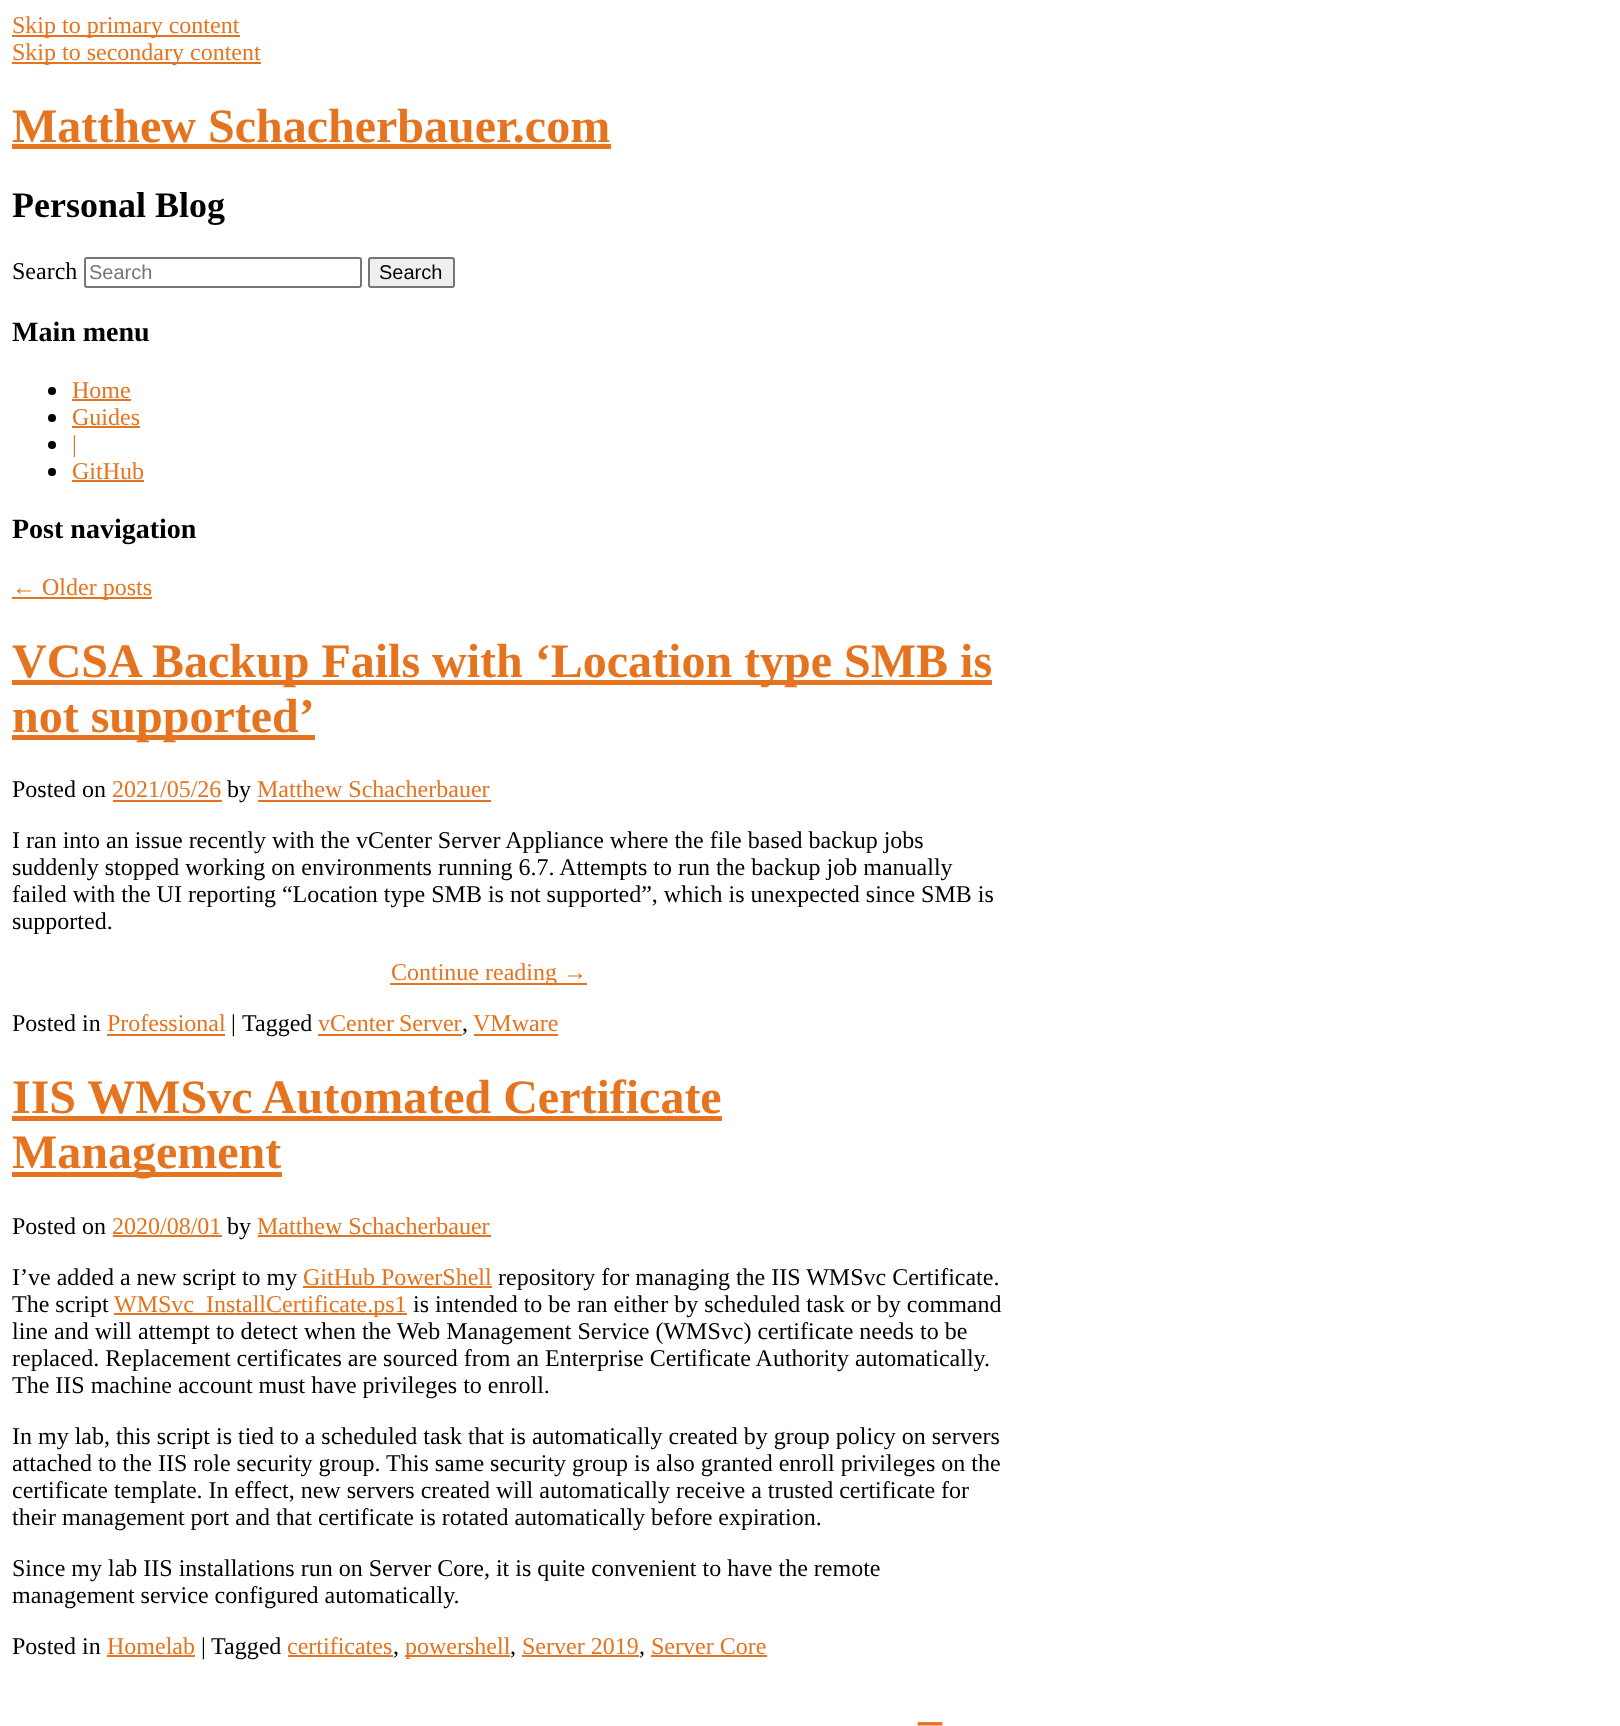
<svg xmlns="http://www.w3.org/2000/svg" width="1620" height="1726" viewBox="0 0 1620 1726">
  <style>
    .t1 { font: 24px Liberation Serif; fill: #e4741f; }
    .t2 { font: bold 48px Liberation Serif; fill: #e4741f; }
    .t3 { font: bold 36px Liberation Serif; fill: #000; }
    .t4 { font: 24px Liberation Serif; fill: #000; }
    .t5 { font: 20px Liberation Sans; fill: #757575; }
    .t6 { font: 20px Liberation Sans; fill: #000; }
    .t7 { font: bold 28px Liberation Serif; fill: #000; }
  </style>
  <rect width="100%" height="100%" fill="#fff"/>
  <rect x="12" y="35" width="228" height="2" fill="#e4741f"/>
  <text x="12" y="33" class="t1">Skip to primary content</text>
  <rect x="12" y="62" width="249" height="2" fill="#e4741f"/>
  <text x="12" y="60" class="t1">Skip to secondary content</text>
  <text x="12" y="142" class="t2">Matthew Schacherbauer.com</text>
  <rect x="12" y="144" width="599" height="5" fill="#e4741f"/>
  <text x="12" y="217" class="t3">Personal Blog</text>
  <text x="12" y="279" class="t4">Search</text>
  <rect x="85" y="258" width="276" height="29" rx="2" fill="none" stroke="#767676" stroke-width="2"/>
  <text x="89" y="279" class="t5">Search</text>
  <rect x="369" y="258" width="85" height="29" rx="2" fill="#efefef" stroke="#767676" stroke-width="2"/>
  <text x="379" y="279" class="t6">Search</text>
  <text x="12" y="341" class="t7">Main menu</text>
  <circle cx="52" cy="391" r="4" fill="#000"/>
  <text x="72" y="398" class="t1">Home</text>
  <rect x="72" y="399" width="59" height="2" fill="#e4741f"/>
  <circle cx="52" cy="418" r="4" fill="#000"/>
  <text x="72" y="425" class="t1">Guides</text>
  <rect x="72" y="426" width="68" height="2" fill="#e4741f"/>
  <circle cx="52" cy="445" r="4" fill="#000"/>
  <text x="72" y="452" class="t1">|</text>
  <circle cx="52" cy="472" r="4" fill="#000"/>
  <text x="72" y="479" class="t1">GitHub</text>
  <rect x="72" y="480" width="72" height="2" fill="#e4741f"/>
  <text x="12" y="538" class="t7">Post navigation</text>
  <rect x="12" y="597" width="140" height="2" fill="#e4741f"/>
  <text x="12" y="595" class="t1">← Older posts</text>
  <rect x="12" y="680" width="980" height="5" fill="#e4741f"/>
  <text x="12" y="677" class="t2">VCSA Backup Fails with ‘Location type SMB is</text>
  <rect x="12" y="735" width="303" height="5" fill="#e4741f"/>
  <text x="12" y="732" class="t2">not supported’</text>
  <text x="12" y="797" class="t4">Posted on</text>
  <text x="112" y="797" class="t1">2021/05/26</text>
  <rect x="113" y="800" width="109" height="2" fill="#e4741f"/>
  <text x="227" y="797" class="t4">by</text>
  <text x="257" y="797" class="t1">Matthew Schacherbauer</text>
  <rect x="258" y="800" width="233" height="2" fill="#e4741f"/>
  <text x="12" y="848" class="t4">I ran into an issue recently with the vCenter Server Appliance where the file based backup jobs</text>
  <text x="12" y="875" class="t4">suddenly stopped working on environments running 6.7. Attempts to run the backup job manually</text>
  <text x="12" y="902" class="t4">failed with the UI reporting “Location type SMB is not supported”, which is unexpected since SMB is</text>
  <text x="12" y="929" class="t4">supported.</text>
  <rect x="390" y="983" width="197" height="2" fill="#e4741f"/>
  <text x="391" y="980" class="t1">Continue reading →</text>
  <text x="12" y="1031" class="t4">Posted in</text>
  <text x="107" y="1031" class="t1">Professional</text>
  <rect x="107" y="1034" width="118" height="2" fill="#e4741f"/>
  <text x="231" y="1031" class="t4">|</text>
  <text x="242" y="1031" class="t4">Tagged</text>
  <text x="318" y="1031" word-spacing="-1" class="t1">vCenter Server</text>
  <text x="462" y="1031" class="t4">,</text>
  <rect x="318" y="1034" width="144" height="2" fill="#e4741f"/>
  <rect x="474" y="1034" width="84" height="2" fill="#e4741f"/>
  <text x="473" y="1031" class="t1">VMware</text>
  <text x="12" y="1113" class="t2">IIS WMSvc Automated Certificate</text>
  <rect x="12" y="1116" width="710" height="5" fill="#e4741f"/>
  <rect x="12" y="1172" width="270" height="5" fill="#e4741f"/>
  <text x="12" y="1168" class="t2">Management</text>
  <text x="12" y="1234" class="t4">Posted on</text>
  <text x="112" y="1234" class="t1">2020/08/01</text>
  <rect x="113" y="1235" width="109" height="2" fill="#e4741f"/>
  <text x="227" y="1234" class="t4">by</text>
  <text x="257" y="1234" class="t1">Matthew Schacherbauer</text>
  <rect x="258" y="1235" width="233" height="2" fill="#e4741f"/>
  <text x="12" y="1285" class="t4">I’ve added a new script to my</text>
  <text x="303" y="1285" class="t1">GitHub PowerShell</text>
  <rect x="303" y="1286" width="189" height="2" fill="#e4741f"/>
  <text x="498" y="1285" class="t4">repository for managing the IIS WMSvc Certificate.</text>
  <text x="12" y="1312" class="t4">The script</text>
  <rect x="114" y="1313" width="293" height="2" fill="#e4741f"/>
  <text x="114" y="1312" class="t1">WMSvc_InstallCertificate.ps1</text>
  <text x="413" y="1312" class="t4">is intended to be ran either by scheduled task or by command</text>
  <text x="12" y="1339" class="t4">line and will attempt to detect when the Web Management Service (WMSvc) certificate needs to be</text>
  <text x="12" y="1366" class="t4">replaced. Replacement certificates are sourced from an Enterprise Certificate Authority automatically.</text>
  <text x="12" y="1393" class="t4">The IIS machine account must have privileges to enroll.</text>
  <text x="12" y="1444" class="t4">In my lab, this script is tied to a scheduled task that is automatically created by group policy on servers</text>
  <text x="12" y="1471" class="t4">attached to the IIS role security group. This same security group is also granted enroll privileges on the</text>
  <text x="12" y="1498" class="t4">certificate template. In effect, new servers created will automatically receive a trusted certificate for</text>
  <text x="12" y="1525" class="t4">their management port and that certificate is rotated automatically before expiration.</text>
  <text x="12" y="1576" class="t4">Since my lab IIS installations run on Server Core, it is quite convenient to have the remote</text>
  <text x="12" y="1603" class="t4">management service configured automatically.</text>
  <text x="12" y="1654" class="t4">Posted in</text>
  <text x="107" y="1654" class="t1">Homelab</text>
  <rect x="107" y="1655" width="88" height="2" fill="#e4741f"/>
  <text x="201" y="1654" class="t4">|</text>
  <text x="211" y="1654" class="t4">Tagged</text>
  <text x="287" y="1654" class="t1">certificates</text>
  <text x="393" y="1654" class="t4">,</text>
  <rect x="288" y="1655" width="105" height="2" fill="#e4741f"/>
  <rect x="405" y="1655" width="105" height="2" fill="#e4741f"/>
  <text x="405" y="1654" class="t1">powershell</text>
  <text x="510" y="1654" class="t4">,</text>
  <text x="522" y="1654" class="t1">Server 2019</text>
  <text x="639" y="1654" class="t4">,</text>
  <rect x="522" y="1655" width="117" height="2" fill="#e4741f"/>
  <rect x="651" y="1655" width="116" height="2" fill="#e4741f"/>
  <text x="651" y="1654" class="t1">Server Core</text>
  <text x="918" y="1735" class="t2">–</text>
</svg>
